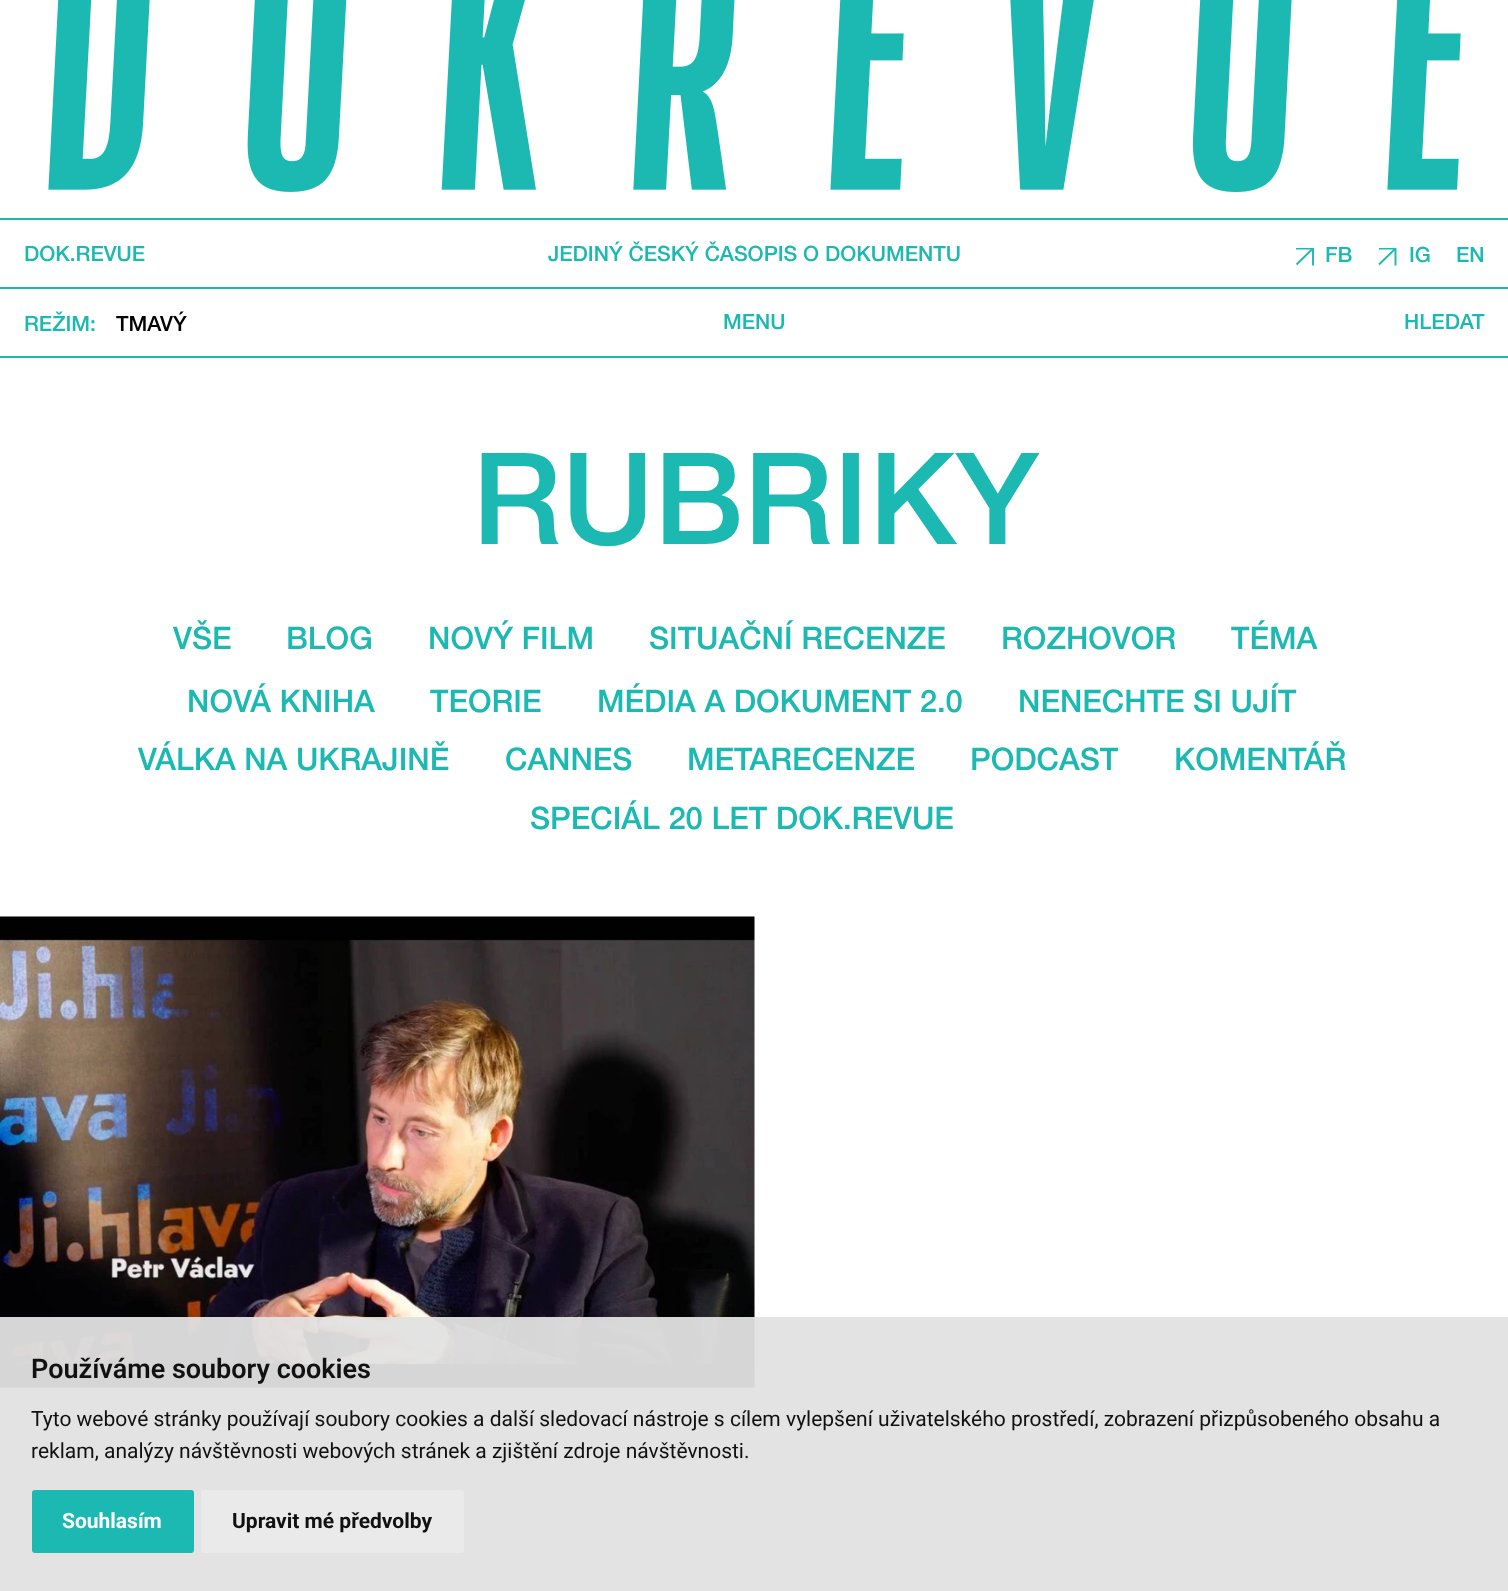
<svg xmlns="http://www.w3.org/2000/svg" width="1508" height="1591" viewBox="0 0 1508 1591">
  <style>
    .t1 { font: 500 21.1px Helvetica Neue; fill: #1bb9b1; }
    .t2 { font: 500 21.1px Helvetica Neue; fill: #000; }
    .t3 { font: 500 127.5px Helvetica Neue; fill: #1bb9b1; }
    .t4 { font: 500 31px Helvetica Neue; fill: #1bb9b1; }
    .t5 { font: 600 27px Roboto; fill: #111; }
    .t6 { font: 21px Roboto; fill: #111; }
    .t7 { font: bold 21px Roboto; fill: #fff; }
    .t8 { font: bold 21px Roboto; fill: #111; }
  </style>
  <defs>
    <clipPath id="clip1"><rect x="1296" y="248" width="18" height="18"/></clipPath>
    <clipPath id="clip2"><rect x="1379" y="248" width="18" height="18"/></clipPath>
  </defs>
  <rect width="100%" height="100%" fill="#fff"/>
  <image x="48" y="0" width="1413" height="192" href="images/1.png"/>
  <rect x="0" y="218" width="1508" height="2" fill="#1bb9b1"/>
  <rect x="0" y="287" width="1508" height="2" fill="#1bb9b1"/>
  <text x="24" y="261" class="t1">DOK.REVUE</text>
  <text x="548" y="261" class="t1">JEDINÝ ČESKÝ ČASOPIS O DOKUMENTU</text>
  <path d="M1296.5 264.5L1312.5 249" fill="none" stroke="#1bb9b1" stroke-width="1.9"/>
  <g clip-path="url(#clip1)">
    <path d="M1313 265.5V248.5H1296" fill="none" stroke="#1bb9b1" stroke-width="1.9"/>
  </g>
  <text x="1325" y="262" class="t1">FB</text>
  <path d="M1379 264.5L1395 249" fill="none" stroke="#1bb9b1" stroke-width="1.9"/>
  <g clip-path="url(#clip2)">
    <path d="M1395.5 265.5V248.5H1378.5" fill="none" stroke="#1bb9b1" stroke-width="1.9"/>
  </g>
  <text x="1409" y="262" class="t1">IG</text>
  <text x="1456" y="262" class="t1">EN</text>
  <rect x="0" y="356" width="1508" height="2" fill="#1bb9b1"/>
  <text x="24" y="331" class="t1">REŽIM:</text>
  <text x="116" y="331" class="t2">TMAVÝ</text>
  <text x="723" y="329" class="t1">MENU</text>
  <text x="1404" y="329" class="t1">HLEDAT</text>
  <text x="472" y="544" class="t3">RUBRIKY</text>
  <text x="173" y="649" class="t4">VŠE</text>
  <text x="286" y="649" class="t4">BLOG</text>
  <text x="428" y="649" class="t4">NOVÝ FILM</text>
  <text x="649" y="649" class="t4">SITUAČNÍ RECENZE</text>
  <text x="1001" y="649" class="t4">ROZHOVOR</text>
  <text x="1231" y="649" class="t4">TÉMA</text>
  <text x="187" y="712" class="t4">NOVÁ KNIHA</text>
  <text x="430" y="712" class="t4">TEORIE</text>
  <text x="597" y="712" class="t4">MÉDIA A DOKUMENT 2.0</text>
  <text x="1018" y="712" class="t4">NENECHTE SI UJÍT</text>
  <text x="138" y="770" class="t4">VÁLKA NA UKRAJINĚ</text>
  <text x="505" y="770" class="t4">CANNES</text>
  <text x="687" y="770" class="t4">METARECENZE</text>
  <text x="970" y="770" class="t4">PODCAST</text>
  <text x="1174" y="770" class="t4">KOMENTÁŘ</text>
  <text x="530" y="829" class="t4">SPECIÁL 20 LET DOK.REVUE</text>
  <image x="0" y="916" width="755" height="472" href="images/2.png"/>
  <rect x="0" y="1317" width="1508" height="274" fill="#e1e1e1f2"/>
  <text x="31" y="1378" class="t5">Používáme soubory cookies</text>
  <text x="31" y="1426" class="t6">Tyto webové stránky používají soubory cookies a další sledovací nástroje s cílem vylepšení uživatelského prostředí, zobrazení přizpůsobeného obsahu a</text>
  <text x="31" y="1458" class="t6">reklam, analýzy návštěvnosti webových stránek a zjištění zdroje návštěvnosti.</text>
  <rect x="32" y="1490" width="162" height="63" rx="3" fill="#1bb9b1"/>
  <text x="62" y="1528" class="t7">Souhlasím</text>
  <rect x="201" y="1490" width="263" height="63" rx="3" fill="#eaeaea"/>
  <text x="232" y="1528" class="t8">Upravit mé předvolby</text>
</svg>
